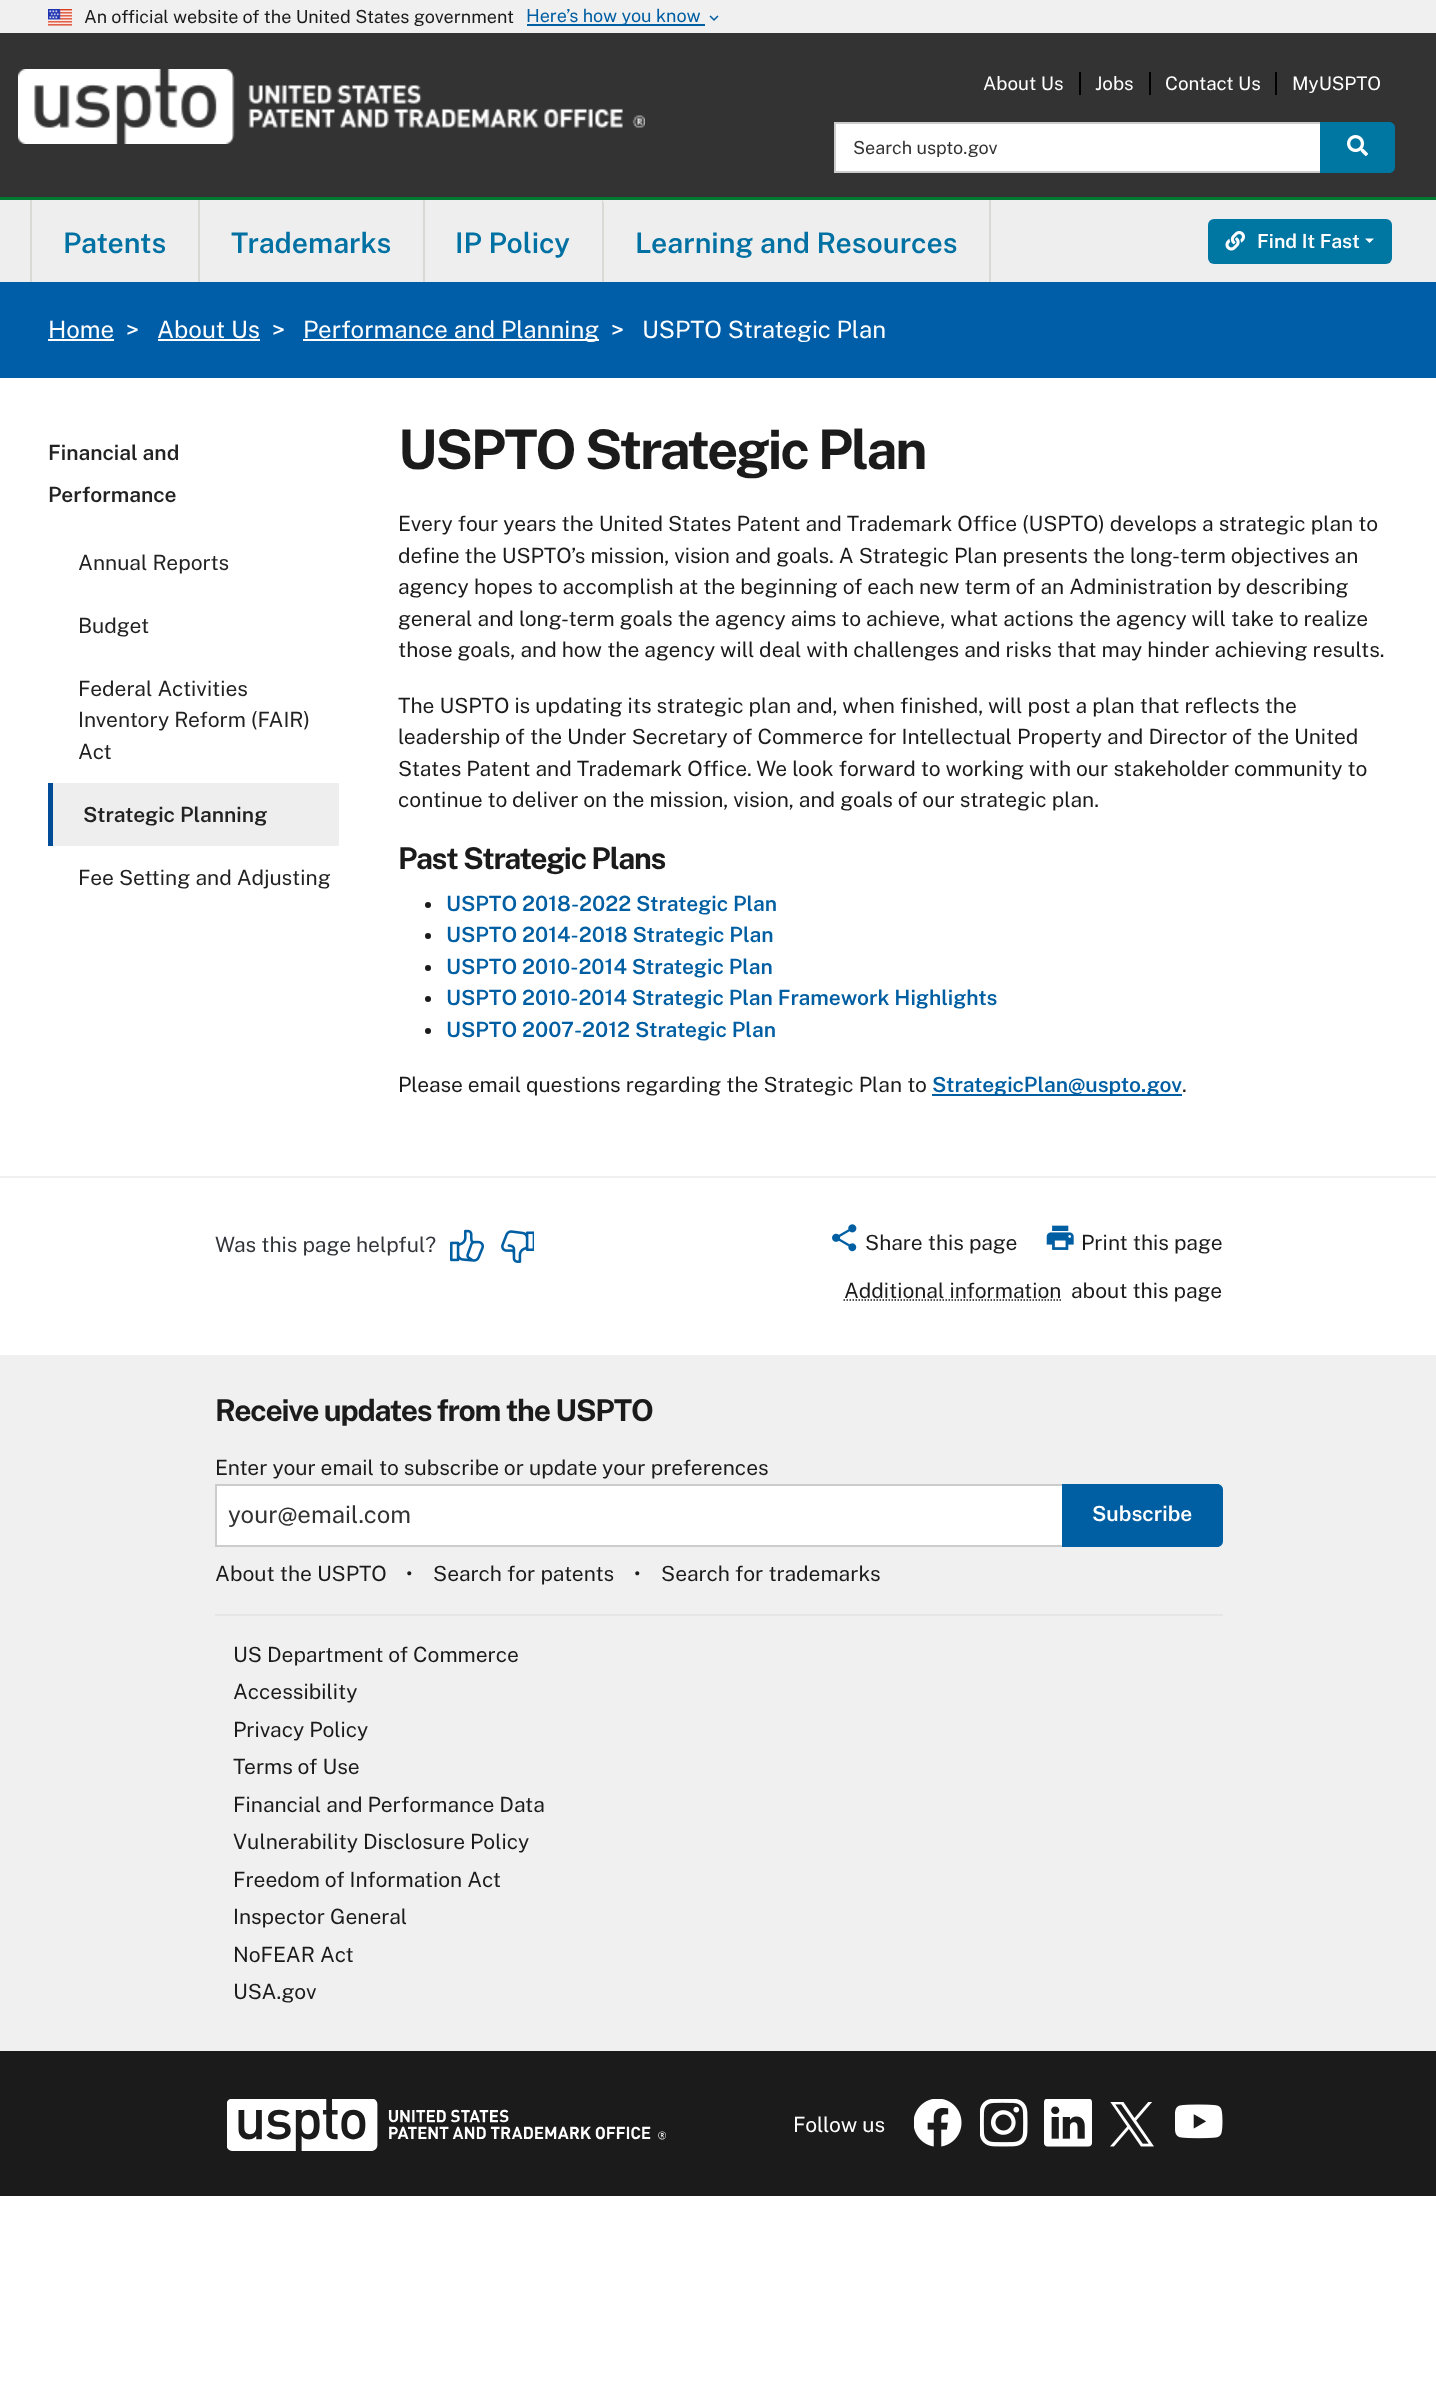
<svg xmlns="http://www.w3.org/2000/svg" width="1436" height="2403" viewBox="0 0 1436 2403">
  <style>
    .t1 { font: 18px Public Sans; fill: #1b1b1b; }
    .t2 { font: 18px Public Sans; fill: #005ea2; }
    .t3 { font: 18.75px Public Sans; fill: #fff; }
    .t4 { font: 18px Public Sans; fill: #333; }
    .t5 { font: 600 28.5px Public Sans; fill: #0071a2; }
    .t6 { font: 600 19.5px Public Sans; fill: #fff; }
    .t7 { font: 24px Public Sans; fill: #fff; }
    .t8 { font: 600 21px Public Sans; fill: #222; }
    .t9 { font: 21px Public Sans; fill: #222; }
    .t10 { font: bold 54.5px Public Sans; letter-spacing: -2.2px; fill: #1b1b1b; }
    .t11 { font: 21px Public Sans; fill: #1b1b1b; }
    .t12 { font: bold 30px Public Sans; letter-spacing: -1.2px; fill: #1b1b1b; }
    .t13 { font: 600 21px Public Sans; fill: #005ea2; }
    .t14 { font: 21px Public Sans; fill: #32363a; }
    .t15 { font: 24px Public Sans; fill: #333; }
    .t16 { font: 600 21px Public Sans; fill: #fff; }
    .t17 { font: 21px Public Sans; fill: #fff; }
  </style>
  <rect width="100%" height="100%" fill="#fff"/>
  <rect x="0" y="0" width="1436" height="33" fill="#f0f0f0"/>
  <image x="48" y="9" width="24" height="17" href="images/1.png"/>
  <text x="84" y="23" class="t1">An official website of the United States government</text>
  <rect x="527" y="24" width="178" height="2" fill="#005ea2"/>
  <text x="526" y="22" class="t2">Here’s how you know</text>
  <image x="709" y="15" width="10" height="6" href="images/2.png"/>
  <rect x="0" y="33" width="1436" height="164" fill="#333"/>
  <image x="18" y="69" width="627" height="75" href="images/3.png"/>
  <text x="983" y="90" class="t3">About Us</text>
  <text x="1095" y="90" class="t3">Jobs</text>
  <rect x="1079" y="72" width="2" height="23" fill="#000"/>
  <text x="1165" y="90" class="t3">Contact Us</text>
  <rect x="1149" y="72" width="2" height="23" fill="#000"/>
  <text x="1292" y="90" class="t3">MyUSPTO</text>
  <rect x="1275" y="72" width="2" height="23" fill="#000"/>
  <rect x="835" y="123" width="486" height="49" fill="#fff" stroke="#ccc" stroke-width="2"/>
  <text x="853" y="154" class="t4">Search uspto.gov</text>
  <path d="M1320 122H1389C1392.5 122 1395 124.5 1395 128V167C1395 170.5 1392.5 173 1389 173H1320Z" fill="#0076a3"/>
  <image x="1347" y="135" width="21" height="21" href="images/4.png"/>
  <rect x="0" y="197" width="1436" height="3" fill="#007a33"/>
  <rect x="0" y="200" width="1436" height="82" fill="#eee"/>
  <rect x="198" y="200" width="2" height="82" fill="#d9d9d6"/>
  <rect x="30" y="200" width="2" height="82" fill="#d9d9d6"/>
  <text x="63" y="253" class="t5">Patents</text>
  <rect x="423" y="200" width="2" height="82" fill="#d9d9d6"/>
  <text x="231" y="253" class="t5">Trademarks</text>
  <rect x="602" y="200" width="2" height="82" fill="#d9d9d6"/>
  <text x="455" y="253" class="t5">IP Policy</text>
  <rect x="603" y="200" width="1" height="2" fill="#eee"/>
  <rect x="989" y="200" width="2" height="82" fill="#d9d9d6"/>
  <text x="635" y="253" class="t5">Learning and Resources</text>
  <rect x="1208" y="219" width="184" height="45" rx="6" fill="#0076a3"/>
  <image x="1225" y="231" width="20" height="20" href="images/5.png"/>
  <text x="1257" y="248" class="t6">Find It Fast</text>
  <path d="M1365 238.5H1374L1369.5 243Z" fill="#fff"/>
  <rect x="0" y="282" width="1436" height="96" fill="#005da8"/>
  <text x="48" y="338" class="t7">Home</text>
  <rect x="48" y="339" width="66" height="2" fill="#fff"/>
  <text x="126" y="338" class="t7">&gt;</text>
  <text x="157" y="338" class="t7">About Us</text>
  <rect x="158" y="339" width="102" height="2" fill="#fff"/>
  <text x="272" y="338" class="t7">&gt;</text>
  <rect x="303" y="339" width="296" height="2" fill="#fff"/>
  <text x="303" y="338" class="t7">Performance and Planning</text>
  <text x="611" y="338" class="t7">&gt;</text>
  <text x="642" y="338" class="t7">USPTO Strategic Plan</text>
  <text x="48" y="460" class="t8">Financial and</text>
  <text x="48" y="502" class="t8">Performance</text>
  <text x="78" y="570" class="t9">Annual Reports</text>
  <text x="78" y="633" class="t9">Budget</text>
  <text x="78" y="696" class="t9">Federal Activities</text>
  <text x="78" y="727" class="t9">Inventory Reform (FAIR)</text>
  <text x="78" y="759" class="t9">Act</text>
  <rect x="53" y="783" width="286" height="63" fill="#eee"/>
  <rect x="48" y="783" width="5" height="63" fill="#004c97"/>
  <text x="83" y="822" class="t8">Strategic Planning</text>
  <text x="78" y="885" class="t9">Fee Setting and Adjusting</text>
  <text x="398" y="469" class="t10">USPTO Strategic Plan</text>
  <text x="398" y="531" class="t11">Every four years the United States Patent and Trademark Office (USPTO) develops a strategic plan to</text>
  <text x="398" y="563" class="t11">define the USPTO’s mission, vision and goals. A Strategic Plan presents the long-term objectives an</text>
  <text x="398" y="594" class="t11">agency hopes to accomplish at the beginning of each new term of an Administration by describing</text>
  <text x="398" y="626" class="t11">general and long-term goals the agency aims to achieve, what actions the agency will take to realize</text>
  <text x="398" y="657" class="t11">those goals, and how the agency will deal with challenges and risks that may hinder achieving results.</text>
  <text x="398" y="713" class="t11">The USPTO is updating its strategic plan and, when finished, will post a plan that reflects the</text>
  <text x="398" y="744" class="t11">leadership of the Under Secretary of Commerce for Intellectual Property and Director of the United</text>
  <text x="398" y="776" class="t11">States Patent and Trademark Office. We look forward to working with our stakeholder community to</text>
  <text x="398" y="807" class="t11">continue to deliver on the mission, vision, and goals of our strategic plan.</text>
  <text x="398" y="869" class="t12">Past Strategic Plans</text>
  <circle cx="428" cy="905" r="3" fill="#1b1b1b"/>
  <text x="446" y="911" class="t13">USPTO 2018-2022 Strategic Plan</text>
  <circle cx="428" cy="936" r="3" fill="#1b1b1b"/>
  <text x="446" y="942" class="t13">USPTO 2014-2018 Strategic Plan</text>
  <circle cx="428" cy="968" r="3" fill="#1b1b1b"/>
  <text x="446" y="974" class="t13">USPTO 2010-2014 Strategic Plan</text>
  <circle cx="428" cy="999" r="3" fill="#1b1b1b"/>
  <text x="446" y="1005" class="t13">USPTO 2010-2014 Strategic Plan Framework Highlights</text>
  <circle cx="428" cy="1031" r="3" fill="#1b1b1b"/>
  <text x="446" y="1037" class="t13">USPTO 2007-2012 Strategic Plan</text>
  <text x="398" y="1092" class="t11">Please email questions regarding the Strategic Plan to</text>
  <rect x="932" y="1094" width="250" height="2" fill="#005ea2"/>
  <text x="932" y="1092" class="t13">StrategicPlan@uspto.gov</text>
  <text x="1182" y="1092" class="t11">.</text>
  <rect x="0" y="1176" width="1436" height="2" fill="#f0f0f0"/>
  <text x="215" y="1252" class="t14">Was this page helpful?</text>
  <image x="450" y="1229" width="34" height="33" href="images/6.png"/>
  <image x="501" y="1230" width="33" height="33" href="images/7.png"/>
  <image x="832" y="1224" width="25" height="28" href="images/8.png"/>
  <text x="865" y="1250" class="t11">Share this page</text>
  <image x="1046" y="1225" width="28" height="25" href="images/9.png"/>
  <text x="1081" y="1250" class="t11">Print this page</text>
  <text x="844" y="1298" class="t11">Additional information</text>
  <path d="M843.5 1300H1061" fill="none" stroke="#1b1b1b" stroke-width="1.5" stroke-dasharray="1.5 1.5"/>
  <text x="1071" y="1298" class="t11">about this page</text>
  <rect x="0" y="1355" width="1436" height="696" fill="#f0f0f0"/>
  <text x="215" y="1421" class="t12">Receive updates from the USPTO</text>
  <text x="215" y="1475" class="t11">Enter your email to subscribe or update your preferences</text>
  <rect x="216" y="1485" width="847" height="61" fill="#fff" stroke="#ccc" stroke-width="2"/>
  <text x="228" y="1523" class="t15">your@email.com</text>
  <path d="M1062 1484H1217C1220.5 1484 1223 1486.5 1223 1490V1541C1223 1544.5 1220.5 1547 1217 1547H1062Z" fill="#005ea2"/>
  <text x="1092" y="1521" class="t16">Subscribe</text>
  <rect x="215" y="1614" width="1008" height="2" fill="#e6e6e6"/>
  <text x="215" y="1581" class="t11">About the USPTO</text>
  <text x="406" y="1581" class="t11">•</text>
  <text x="433" y="1581" class="t11">Search for patents</text>
  <text x="634" y="1581" class="t11">•</text>
  <text x="661" y="1581" class="t11">Search for trademarks</text>
  <text x="233" y="1662" class="t11">US Department of Commerce</text>
  <text x="233" y="1699" class="t11">Accessibility</text>
  <text x="233" y="1737" class="t11">Privacy Policy</text>
  <text x="233" y="1774" class="t11">Terms of Use</text>
  <text x="233" y="1812" class="t11">Financial and Performance Data</text>
  <text x="233" y="1849" class="t11">Vulnerability Disclosure Policy</text>
  <text x="233" y="1887" class="t11">Freedom of Information Act</text>
  <text x="233" y="1924" class="t11">Inspector General</text>
  <text x="233" y="1962" class="t11">NoFEAR Act</text>
  <text x="233" y="1999" class="t11">USA.gov</text>
  <rect x="0" y="2051" width="1436" height="145" fill="#1b1b1b"/>
  <image x="227" y="2099" width="439" height="52" href="images/10.png"/>
  <text x="793" y="2132" class="t17">Follow us</text>
  <image x="914" y="2099" width="48" height="48" href="images/11.png"/>
  <image x="980" y="2099" width="48" height="48" href="images/12.png"/>
  <image x="1044" y="2099" width="48" height="48" href="images/13.png"/>
  <image x="1110" y="2102" width="44" height="45" href="images/14.png"/>
  <image x="1175" y="2104" width="48" height="35" href="images/15.png"/>
</svg>
